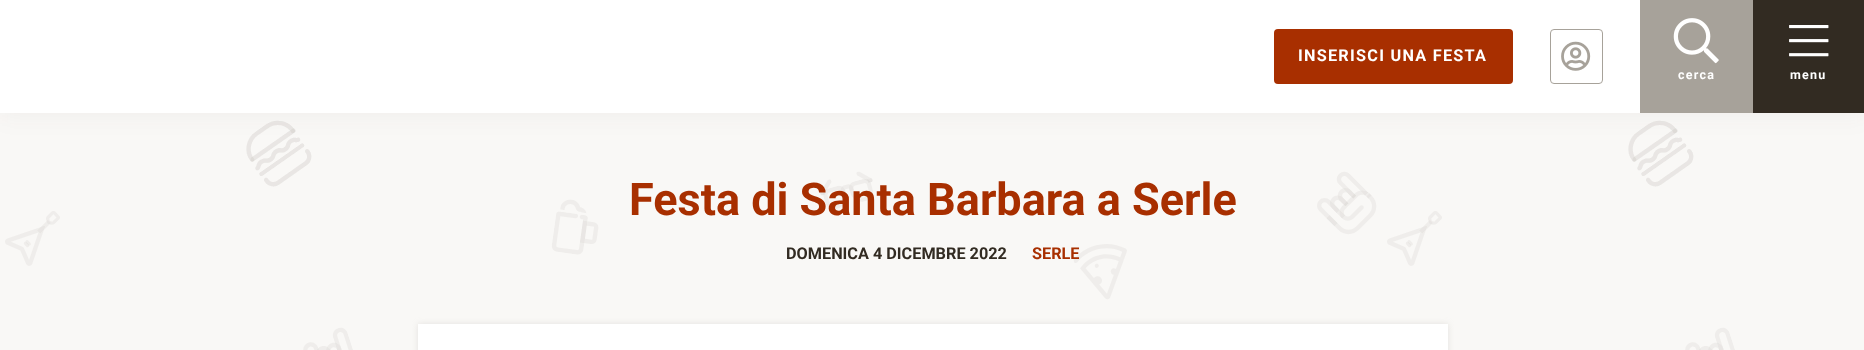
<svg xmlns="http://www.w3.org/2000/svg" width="1864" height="350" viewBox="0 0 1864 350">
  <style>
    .t1 { font: bold 16.25px Roboto; letter-spacing: 1.25px; fill: #fff; }
    .t2 { font: bold 12.5px Roboto; letter-spacing: 1.25px; fill: #fff; }
    .t3 { font: bold 45px Roboto; fill: #a82f00; }
    .t4 { font: bold 16.25px Roboto; fill: #322b22; }
    .t5 { font: bold 16.25px Roboto; fill: #a82f00; }
  </style>
  <rect width="100%" height="100%" fill="#f9f8f6"/>
  <image x="5" y="120" width="1730" height="230" href="images/4.png"/>
  <rect x="0" y="3" width="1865" height="112" fill="#322b220d" filter="blur(12.5px)"/>
  <rect x="0" y="0" width="1640" height="113" fill="#fff"/>
  <rect x="1274" y="29" width="239" height="55" rx="4" fill="#a82f00"/>
  <text x="1298" y="61" class="t1">INSERISCI UNA FESTA</text>
  <rect x="1550.5" y="29.5" width="52" height="54" rx="3.5" fill="none" stroke="#a7a29a"/>
  <image x="1561" y="41" width="30" height="30" href="images/1.png"/>
  <rect x="1640" y="0" width="113" height="113" fill="#a7a29a"/>
  <image x="1673" y="18" width="46" height="46" href="images/2.png"/>
  <text x="1678" y="79" class="t2">cerca</text>
  <rect x="1753" y="0" width="111" height="113" fill="#322b22"/>
  <image x="1789" y="25" width="40" height="32" href="images/3.png"/>
  <text x="1790" y="79" class="t2">menu</text>
  <text x="629" y="215" class="t3">Festa di Santa Barbara a Serle</text>
  <text x="786" y="259" class="t4">DOMENICA 4 DICEMBRE 2022</text>
  <text x="1032" y="259" class="t5">SERLE</text>
  <rect x="418" y="324" width="1030" height="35" fill="#a7a29a40" filter="blur(3px)"/>
  <rect x="418" y="324" width="1030" height="26" fill="#fff"/>
</svg>
